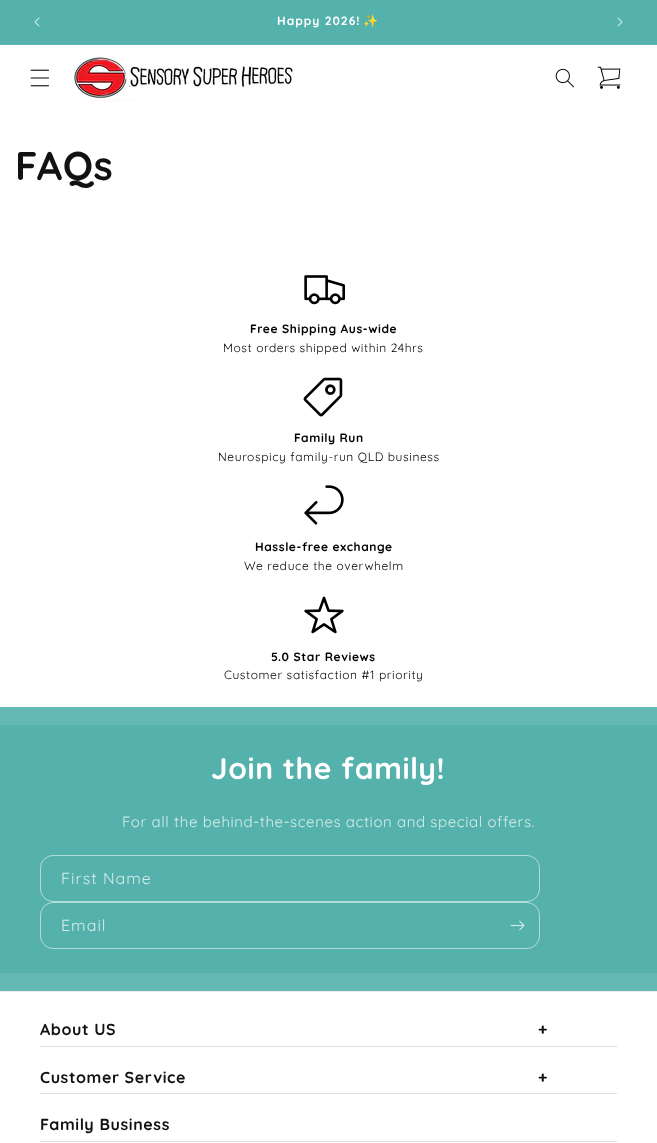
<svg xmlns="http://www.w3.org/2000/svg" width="657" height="1143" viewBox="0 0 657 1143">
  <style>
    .t1 { font: bold 12px Quicksand; letter-spacing: 1px; fill: #fff; }
    .t2 { font: bold 12px Noto Color Emoji; letter-spacing: 1px; fill: #fff; }
    .t3 { font: bold 40px Quicksand; letter-spacing: 0.6px; fill: #121212; }
    .t4 { font: bold 12px Quicksand; letter-spacing: 0.6px; fill: #000; }
    .t5 { font: 12px Quicksand; letter-spacing: 0.6px; fill: #000; }
    .t6 { font: bold 30px Quicksand; letter-spacing: 0.6px; fill: #fff; }
    .t7 { font: 15px Quicksand; letter-spacing: 0.6px; fill: #d4ecea; }
    .t8 { font: 16px Quicksand; letter-spacing: 1px; fill: #d4ecea; }
    .t9 { font: bold 16px Quicksand; letter-spacing: 0.6px; fill: #121212; }
  </style>
  <rect width="100%" height="100%" fill="#fff"/>
  <rect x="0" y="0" width="657" height="44" fill="#54b1ac"/>
  <rect x="0" y="44" width="657" height="1" fill="#62b7b3"/>
  <image x="34" y="17" width="6" height="10" href="images/1.png"/>
  <text x="277" y="25" class="t1">Happy 2026!</text>
  <text x="363" y="25" class="t2">✨️</text>
  <image x="617" y="17" width="6" height="10" href="images/2.png"/>
  <image x="30" y="69" width="20" height="18" href="images/3.png"/>
  <image x="72" y="55" width="222" height="46" href="images/4.png"/>
  <image x="555" y="68" width="19" height="20" href="images/5.png"/>
  <image x="597" y="66" width="24" height="23" href="images/6.png"/>
  <text x="15" y="180" class="t3">FAQs</text>
  <image x="304" y="275" width="41" height="30" href="images/7.png"/>
  <text x="250" y="333" class="t4">Free Shipping Aus-wide</text>
  <text x="223" y="352" class="t5">Most orders shipped within 24hrs</text>
  <image x="303" y="377" width="40" height="40" href="images/8.png"/>
  <text x="294" y="442" class="t4">Family Run</text>
  <text x="218" y="461" class="t5">Neurospicy family-run QLD business</text>
  <image x="304" y="485" width="40" height="40" href="images/9.png"/>
  <text x="255" y="551" class="t4">Hassle-free exchange</text>
  <text x="244" y="570" class="t5">We reduce the overwhelm</text>
  <image x="304" y="596" width="40" height="38" href="images/10.png"/>
  <text x="271" y="661" class="t4">5.0 Star Reviews</text>
  <text x="224" y="679" class="t5">Customer satisfaction #1 priority</text>
  <rect x="0" y="725" width="657" height="248" fill="#54b1ac"/>
  <rect x="0" y="707" width="657" height="18" fill="#65b9b4"/>
  <rect x="0" y="973" width="657" height="18" fill="#65b9b4"/>
  <text x="211" y="779" class="t6">Join the family!</text>
  <text x="122" y="827" class="t7">For all the behind-the-scenes action and special offers.</text>
  <rect x="40.5" y="855.5" width="499" height="46" rx="12.5" fill="none" stroke="#b2dcda"/>
  <text x="61" y="884" class="t8">First Name</text>
  <rect x="40.5" y="902.5" width="499" height="46" rx="12.5" fill="none" stroke="#b2dcda"/>
  <text x="61" y="931" class="t8">Email</text>
  <image x="510" y="920" width="15" height="11" href="images/11.png"/>
  <rect x="0" y="991" width="657" height="1" fill="#ececec"/>
  <rect x="40" y="1046" width="577" height="1" fill="#ddd"/>
  <text x="40" y="1035" class="t9">About US</text>
  <text x="538" y="1035" class="t9">+</text>
  <rect x="40" y="1093" width="577" height="1" fill="#ddd"/>
  <text x="40" y="1083" class="t9">Customer Service</text>
  <text x="538" y="1083" class="t9">+</text>
  <rect x="40" y="1141" width="577" height="1" fill="#ddd"/>
  <text x="40" y="1130" class="t9">Family Business</text>
</svg>
